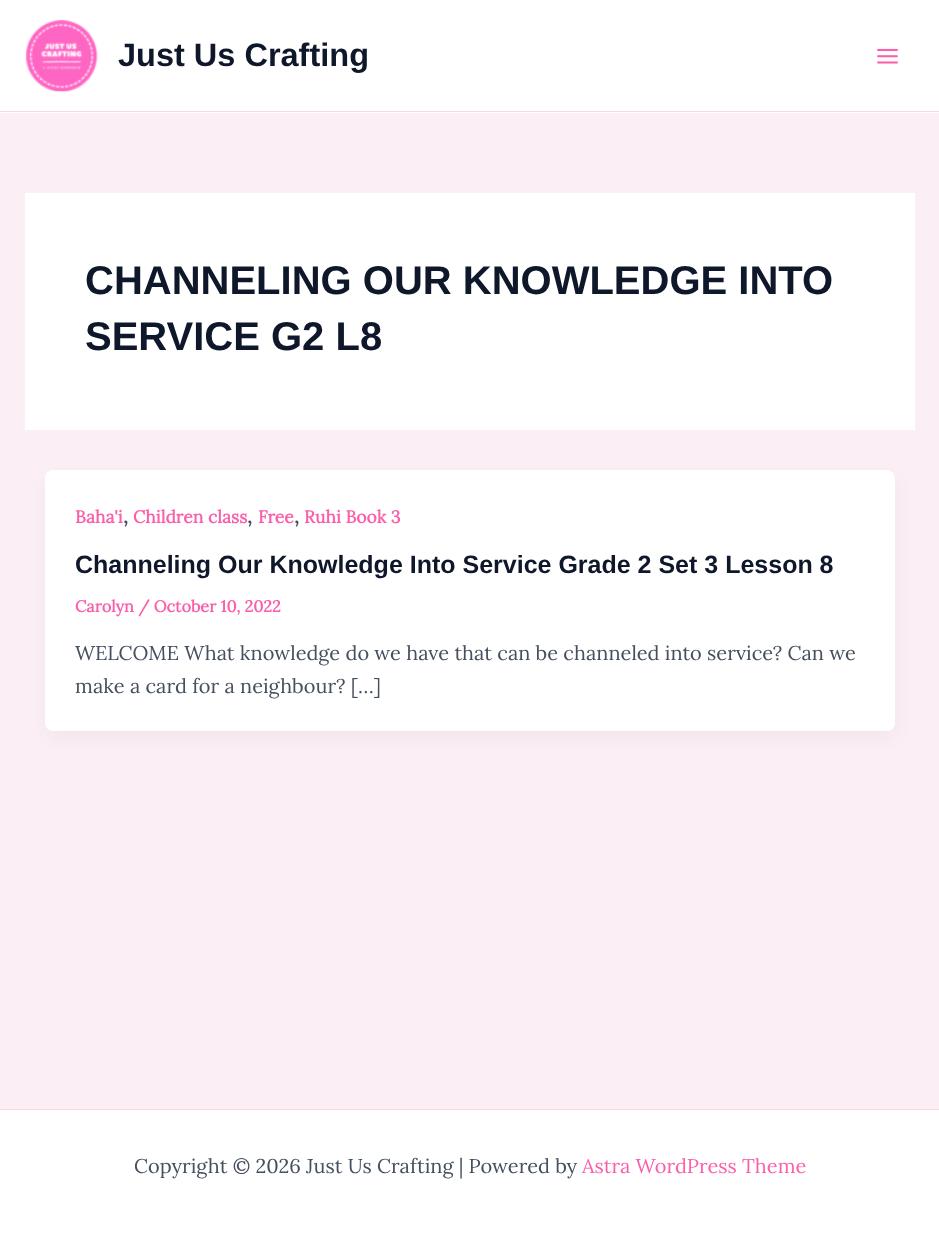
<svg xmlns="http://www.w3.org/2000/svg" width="939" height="1235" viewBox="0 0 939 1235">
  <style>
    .t1 { font: bold 32.5px Liberation Sans; fill: #0f172a; }
    .t2 { font: bold 40px Liberation Sans; fill: #0f172a; }
    .t3 { font: bold 17.5px Lora; fill: #fb5fab; }
    .t4 { font: bold 20px Lora; fill: #454f5e; }
    .t5 { font: bold 25px Liberation Sans; fill: #0f172a; }
    .t6 { font: bold 16.25px Lora; fill: #fb5fab; }
    .t7 { font: 20px Lora; fill: #454f5e; }
    .t8 { font: 20px Lora; fill: #fb5fab; }
  </style>
  <rect width="100%" height="100%" fill="#fceef5"/>
  <rect x="0" y="0" width="939" height="113" fill="#fff"/>
  <rect x="0" y="111" width="939" height="1" fill="#fad8e9"/>
  <image x="25" y="20" width="73" height="72" href="images/1.png"/>
  <text x="118" y="66" class="t1">Just Us Crafting</text>
  <image x="877" y="48" width="21" height="16" href="images/2.png"/>
  <rect x="25" y="193" width="890" height="237" fill="#fff"/>
  <text x="85" y="294" class="t2">CHANNELING OUR KNOWLEDGE INTO</text>
  <text x="85" y="350" class="t2">SERVICE G2 L8</text>
  <rect x="48" y="480" width="845" height="256" rx="5" fill="#1018280d" filter="blur(9.5px)"/>
  <rect x="45" y="470" width="850" height="261" rx="8" fill="#fff"/>
  <text x="75" y="523" class="t3">Baha'i</text>
  <text x="123" y="523" class="t4">,</text>
  <text x="133" y="523" class="t3">Children class</text>
  <text x="247" y="523" class="t4">,</text>
  <text x="258" y="523" class="t3">Free</text>
  <text x="294" y="523" class="t4">,</text>
  <text x="304" y="523" class="t3">Ruhi Book 3</text>
  <text x="75" y="573" class="t5">Channeling Our Knowledge Into Service Grade 2 Set 3 Lesson 8</text>
  <text x="75" y="612" class="t6">Carolyn / October 10, 2022</text>
  <text x="75" y="660" class="t7">WELCOME What knowledge do we have that can be channeled into service? Can we</text>
  <text x="75" y="693" class="t7">make a card for a neighbour? […]</text>
  <rect x="0" y="1110" width="939" height="125" fill="#fff"/>
  <rect x="0" y="1109" width="939" height="1" fill="#fad8e9"/>
  <text x="134" y="1173" class="t7">Copyright © 2026 Just Us Crafting | Powered by</text>
  <text x="582" y="1173" class="t8">Astra WordPress Theme</text>
</svg>
